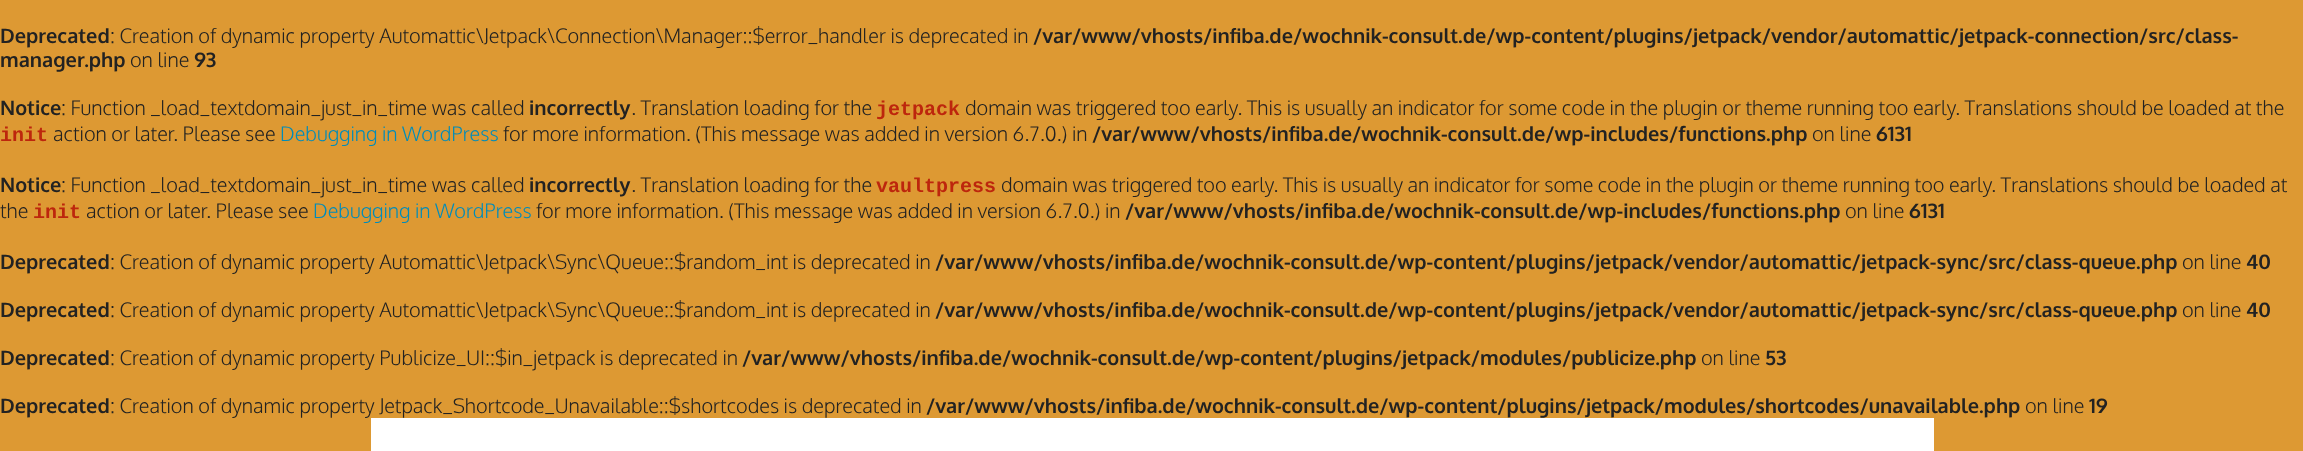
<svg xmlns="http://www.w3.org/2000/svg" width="2303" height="451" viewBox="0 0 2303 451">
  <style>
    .t1 { font: bold 20px Oxygen; fill: #222; }
    .t2 { font: 300 20px Oxygen; fill: #222; }
    .t3 { font: bold 20px Liberation Mono; fill: #bd260d; }
    .t4 { font: 300 20px Oxygen; fill: #008cba; }
  </style>
  <rect width="100%" height="100%" fill="#d93"/>
  <text x="0" y="43" class="t1">Deprecated</text>
  <text x="110" y="43" class="t2">: Creation of dynamic property Automattic\Jetpack\Connection\Manager::$error_handler is deprecated in</text>
  <text x="1033" y="43" class="t1">/var/www/vhosts/infiba.de/wochnik-consult.de/wp-content/plugins/jetpack/vendor/automattic/jetpack-connection/src/class-</text>
  <text x="0" y="67" class="t1">manager.php</text>
  <text x="130" y="67" class="t2">on line</text>
  <text x="194" y="67" class="t1">93</text>
  <text x="0" y="115" class="t1">Notice</text>
  <text x="61" y="115" class="t2">: Function _load_textdomain_just_in_time was called</text>
  <text x="529" y="115" class="t1">incorrectly</text>
  <text x="631" y="115" class="t2">. Translation loading for the</text>
  <text x="876" y="115" class="t3">jetpack</text>
  <text x="965" y="115" class="t2">domain was triggered too early. This is usually an indicator for some code in the plugin or theme running too early. Translations should be loaded at the</text>
  <text x="0" y="141" class="t3">init</text>
  <text x="53" y="141" class="t2">action or later. Please see</text>
  <text x="280" y="141" class="t4">Debugging in WordPress</text>
  <text x="503" y="141" class="t2">for more information. (This message was added in version 6.7.0.) in</text>
  <text x="1092" y="141" class="t1">/var/www/vhosts/infiba.de/wochnik-consult.de/wp-includes/functions.php</text>
  <text x="1812" y="141" class="t2">on line</text>
  <text x="1876" y="141" class="t1">6131</text>
  <text x="0" y="192" class="t1">Notice</text>
  <text x="61" y="192" class="t2">: Function _load_textdomain_just_in_time was called</text>
  <text x="529" y="192" class="t1">incorrectly</text>
  <text x="631" y="192" class="t2">. Translation loading for the</text>
  <text x="876" y="192" class="t3">vaultpress</text>
  <text x="1001" y="192" class="t2">domain was triggered too early. This is usually an indicator for some code in the plugin or theme running too early. Translations should be loaded at</text>
  <text x="0" y="218" class="t2">the</text>
  <text x="33" y="218" class="t3">init</text>
  <text x="86" y="218" class="t2">action or later. Please see</text>
  <text x="313" y="218" class="t4">Debugging in WordPress</text>
  <text x="536" y="218" class="t2">for more information. (This message was added in version 6.7.0.) in</text>
  <text x="1125" y="218" class="t1">/var/www/vhosts/infiba.de/wochnik-consult.de/wp-includes/functions.php</text>
  <text x="1845" y="218" class="t2">on line</text>
  <text x="1909" y="218" class="t1">6131</text>
  <text x="0" y="269" class="t1">Deprecated</text>
  <text x="110" y="269" class="t2">: Creation of dynamic property Automattic\Jetpack\Sync\Queue::$random_int is deprecated in</text>
  <text x="935" y="269" class="t1">/var/www/vhosts/infiba.de/wochnik-consult.de/wp-content/plugins/jetpack/vendor/automattic/jetpack-sync/src/class-queue.php</text>
  <text x="2182" y="269" class="t2">on line</text>
  <text x="2246" y="269" class="t1">40</text>
  <text x="0" y="317" class="t1">Deprecated</text>
  <text x="110" y="317" class="t2">: Creation of dynamic property Automattic\Jetpack\Sync\Queue::$random_int is deprecated in</text>
  <text x="935" y="317" class="t1">/var/www/vhosts/infiba.de/wochnik-consult.de/wp-content/plugins/jetpack/vendor/automattic/jetpack-sync/src/class-queue.php</text>
  <text x="2182" y="317" class="t2">on line</text>
  <text x="2246" y="317" class="t1">40</text>
  <text x="0" y="365" class="t1">Deprecated</text>
  <text x="110" y="365" class="t2">: Creation of dynamic property Publicize_UI::$in_jetpack is deprecated in</text>
  <text x="742" y="365" class="t1">/var/www/vhosts/infiba.de/wochnik-consult.de/wp-content/plugins/jetpack/modules/publicize.php</text>
  <text x="1701" y="365" class="t2">on line</text>
  <text x="1765" y="365" class="t1">53</text>
  <text x="0" y="413" class="t1">Deprecated</text>
  <text x="110" y="413" class="t2">: Creation of dynamic property Jetpack_Shortcode_Unavailable::$shortcodes is deprecated in</text>
  <text x="926" y="413" class="t1">/var/www/vhosts/infiba.de/wochnik-consult.de/wp-content/plugins/jetpack/modules/shortcodes/unavailable.php</text>
  <text x="2025" y="413" class="t2">on line</text>
  <text x="2089" y="413" class="t1">19</text>
  <rect x="371" y="418" width="1563" height="33" fill="#fff"/>
</svg>
